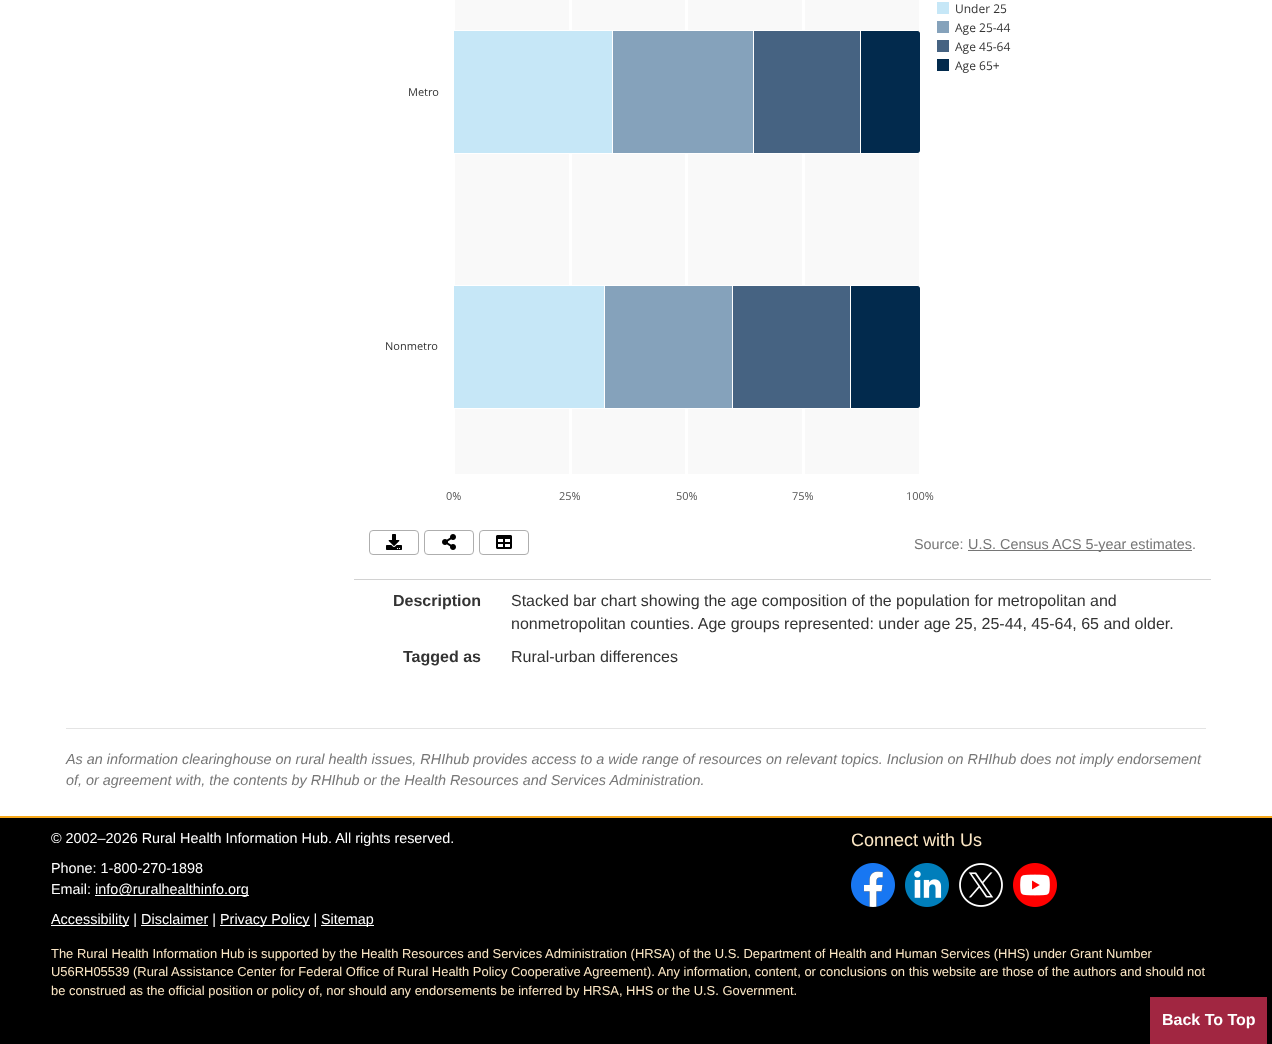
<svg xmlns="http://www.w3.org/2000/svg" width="1272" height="1044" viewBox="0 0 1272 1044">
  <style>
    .t1 { font: 12px Open Sans; fill: #333; }
    .t2 { font: 11px Open Sans; fill: #333; }
    .t3 { font: 11px Open Sans; fill: #565656; }
    .t4 { font: 14.4px Liberation Sans; fill: #767676; }
    .t5 { font: bold 16px Liberation Sans; fill: #333; }
    .t6 { font: 16px Liberation Sans; fill: #333; }
    .t7 { font: italic 14.4px Liberation Sans; fill: #767676; }
    .t8 { font: 14.4px Liberation Sans; fill: #fff; }
    .t9 { font: 18px Liberation Sans; fill: #fde8c6; }
    .t10 { font: 12.95px Liberation Sans; fill: #fde8c6; }
    .t11 { font: bold 16px Liberation Sans; fill: #fff; }
  </style>
  <rect width="100%" height="100%" fill="#fff"/>
  <image x="454" y="0" width="495" height="474" href="images/1.png"/>
  <text x="955" y="13" class="t1">Under 25</text>
  <text x="955" y="32" class="t1">Age 25-44</text>
  <text x="955" y="51" class="t1">Age 45-64</text>
  <text x="955" y="70" class="t1">Age 65+</text>
  <text x="408" y="96" class="t2">Metro</text>
  <text x="385" y="350" class="t2">Nonmetro</text>
  <text x="446" y="500" class="t3">0%</text>
  <text x="559" y="500" class="t3">25%</text>
  <text x="676" y="500" class="t3">50%</text>
  <text x="792" y="500" class="t3">75%</text>
  <text x="906" y="500" class="t3">100%</text>
  <rect x="369.5" y="530.5" width="49" height="24" rx="3.5" fill="none" stroke="#aeaeae"/>
  <image x="386" y="534" width="16" height="16" href="images/2.png"/>
  <rect x="424.5" y="530.5" width="49" height="24" rx="3.5" fill="none" stroke="#aeaeae"/>
  <image x="442" y="534" width="14" height="16" href="images/3.png"/>
  <rect x="479.5" y="530.5" width="49" height="24" rx="3.5" fill="none" stroke="#aeaeae"/>
  <image x="496" y="535" width="16" height="14" href="images/4.png"/>
  <text x="914" y="549" class="t4">Source:</text>
  <rect x="968" y="550" width="224" height="1" fill="#767676"/>
  <text x="968" y="549" class="t4">U.S. Census ACS 5-year estimates.</text>
  <rect x="354" y="579" width="857" height="1" fill="#d2d2d2"/>
  <text x="393" y="606" class="t5">Description</text>
  <text x="511" y="606" class="t6">Stacked bar chart showing the age composition of the population for metropolitan and</text>
  <text x="511" y="629" class="t6">nonmetropolitan counties. Age groups represented: under age 25, 25-44, 45-64, 65 and older.</text>
  <text x="403" y="662" class="t5">Tagged as</text>
  <text x="511" y="662" class="t6">Rural-urban differences</text>
  <rect x="66" y="728" width="1140" height="1" fill="#e4e4e4"/>
  <text x="66" y="764" class="t7">As an information clearinghouse on rural health issues, RHIhub provides access to a wide range of resources on relevant topics. Inclusion on RHIhub does not imply endorsement</text>
  <text x="66" y="785" class="t7">of, or agreement with, the contents by RHIhub or the Health Resources and Services Administration.</text>
  <rect x="0" y="818" width="1272" height="226" fill="#000"/>
  <rect x="0" y="816" width="1272" height="2" fill="#f7a81b"/>
  <text x="51" y="843" class="t8">© 2002–2026 Rural Health Information Hub. All rights reserved.</text>
  <text x="51" y="873" class="t8">Phone: 1-800-270-1898</text>
  <text x="51" y="894" class="t8">Email:</text>
  <rect x="95" y="895" width="154" height="1" fill="#fff"/>
  <text x="95" y="894" class="t8">info@ruralhealthinfo.org</text>
  <rect x="51" y="925" width="78" height="1" fill="#fff"/>
  <text x="51" y="924" class="t8">Accessibility | Disclaimer |</text>
  <rect x="220" y="925" width="90" height="1" fill="#fff"/>
  <text x="220" y="924" class="t8">Privacy Policy |</text>
  <rect x="321" y="925" width="53" height="1" fill="#fff"/>
  <text x="321" y="924" class="t8">Sitemap</text>
  <rect x="141" y="925" width="67" height="1" fill="#fff"/>
  <text x="851" y="846" class="t9">Connect with Us</text>
  <image x="851" y="863" width="44" height="44" href="images/5.png"/>
  <image x="905" y="863" width="44" height="44" href="images/6.png"/>
  <image x="959" y="863" width="44" height="44" href="images/7.png"/>
  <image x="1013" y="863" width="44" height="44" href="images/8.png"/>
  <text x="51" y="958" class="t10">The Rural Health Information Hub is supported by the Health Resources and Services Administration (HRSA) of the U.S. Department of Health and Human Services (HHS) under Grant Number</text>
  <text x="51" y="976" class="t10">U56RH05539 (Rural Assistance Center for Federal Office of Rural Health Policy Cooperative Agreement). Any information, content, or conclusions on this website are those of the authors and should not</text>
  <text x="51" y="995" class="t10">be construed as the official position or policy of, nor should any endorsements be inferred by HRSA, HHS or the U.S. Government.</text>
  <rect x="1150" y="997" width="117" height="47" fill="#a12641"/>
  <text x="1162" y="1025" class="t11">Back To Top</text>
</svg>
